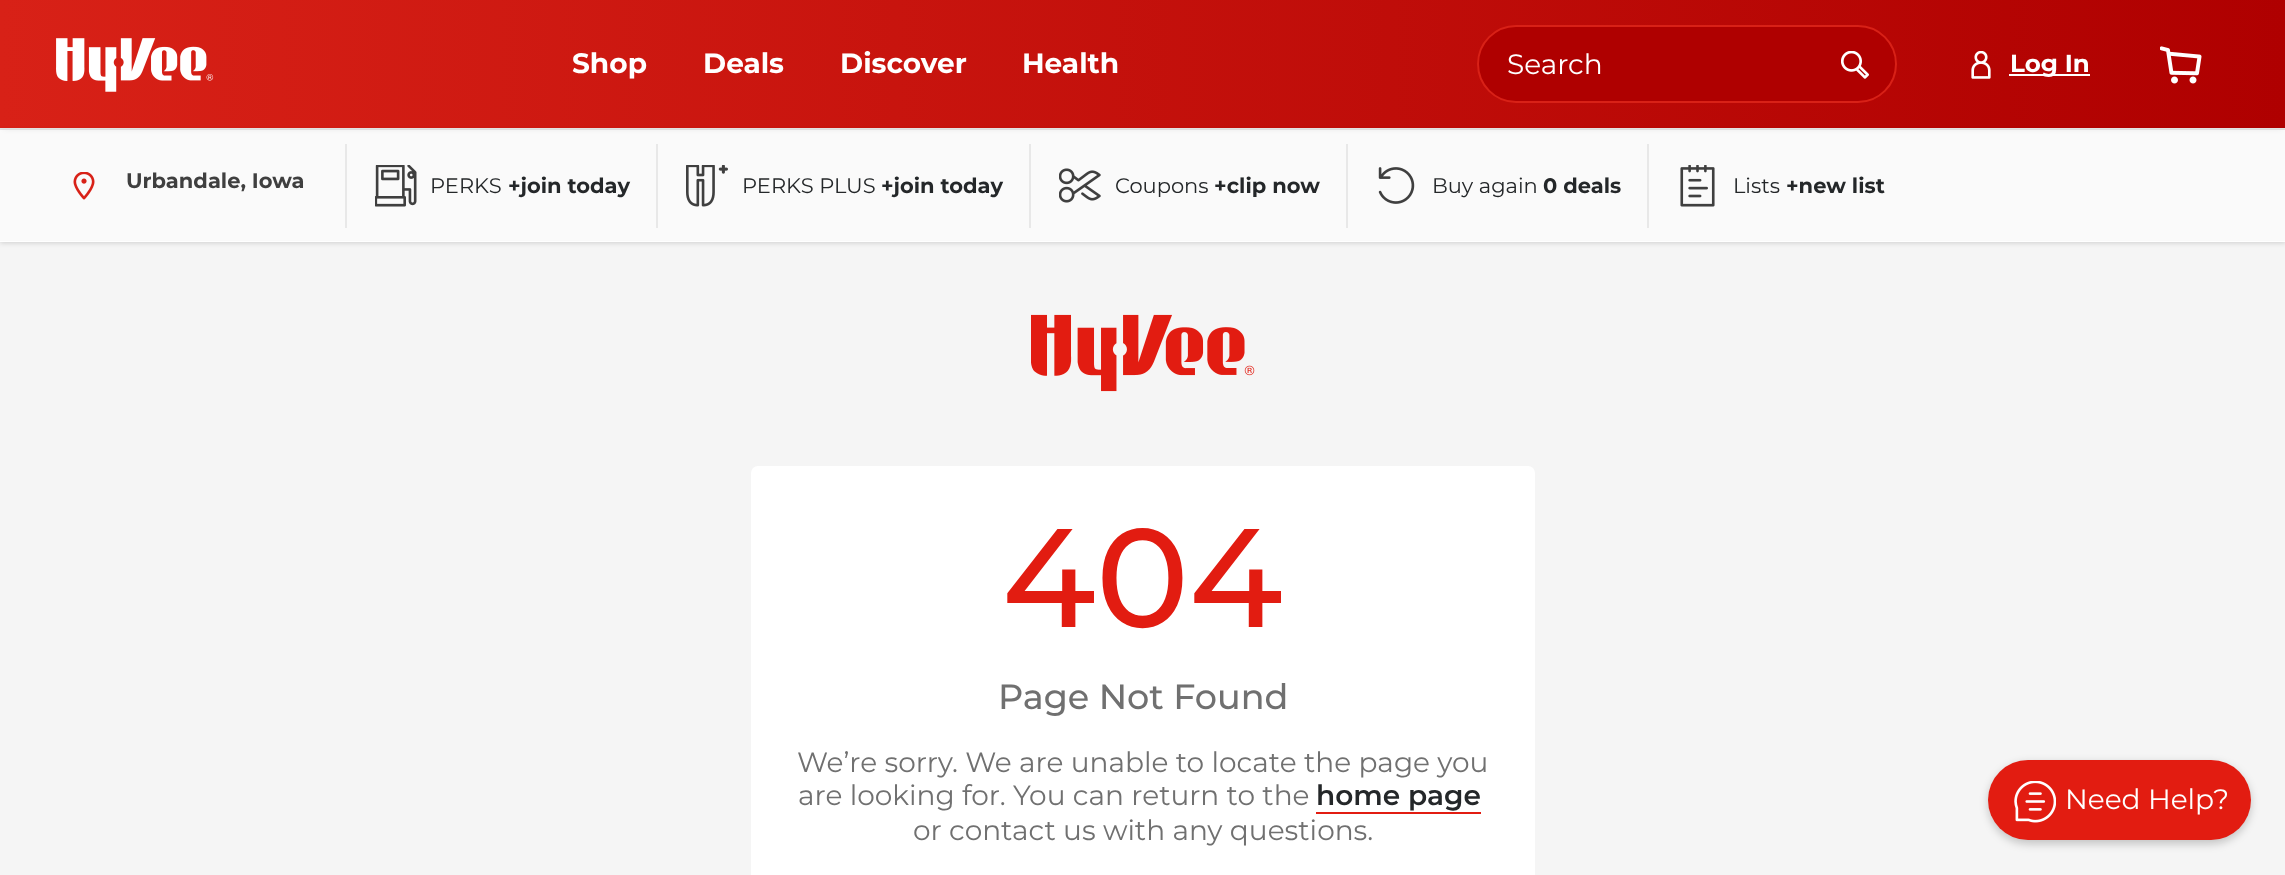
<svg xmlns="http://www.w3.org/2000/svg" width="2285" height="875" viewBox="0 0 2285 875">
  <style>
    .t1 { font: bold 28px Montserrat; fill: #fff; }
    .t2 { font: 28px Montserrat; fill: #fff; }
    .t3 { font: bold 24.5px Montserrat; fill: #fff; }
    .t4 { font: bold 21px Montserrat; fill: #3f3f3f; }
    .t5 { font: 21px Montserrat; fill: #242729; }
    .t6 { font: bold 21px Montserrat; fill: #242729; }
    .t7 { font: 500 140px Montserrat; fill: #e21c11; }
    .t8 { font: 500 35px Montserrat; fill: #707070; }
    .t9 { font: 28px Montserrat; fill: #707070; }
    .t10 { font: 600 28px Montserrat; fill: #242729; }
  </style>
  <defs>
    <linearGradient id="g1" gradientUnits="userSpaceOnUse" x1="0" y1="64" x2="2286" y2="64"><stop offset="0" stop-color="#d82117"/><stop offset="1" stop-color="#af0000"/></linearGradient>
    <clipPath id="clip1"><path d="M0 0H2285V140H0ZM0 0H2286V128H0Z" clip-rule="evenodd"/></clipPath>
    <clipPath id="clip2"><path d="M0 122H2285V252H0ZM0 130H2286V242H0Z" clip-rule="evenodd"/></clipPath>
  </defs>
  <rect width="100%" height="100%" fill="#fff"/>
  <rect x="0" y="0" width="2285" height="128" fill="url(#g1)"/>
  <g clip-path="url(#clip1)">
    <rect x="4" y="7" width="2278" height="121" fill="#00000033" filter="blur(3.5px)"/>
  </g>
  <image x="56" y="38" width="158" height="54" href="images/1.png"/>
  <text x="572" y="73" class="t1">Shop</text>
  <text x="703" y="73" class="t1">Deals</text>
  <text x="840" y="73" class="t1">Discover</text>
  <text x="1022" y="73" class="t1">Health</text>
  <rect x="1478" y="26" width="418" height="76" rx="38" fill="#af0000" stroke="#d82117" stroke-width="2"/>
  <text x="1507" y="74" class="t2">Search</text>
  <image x="1841" y="51" width="28" height="28" href="images/2.png"/>
  <image x="1971" y="51" width="20" height="28" href="images/3.png"/>
  <rect x="2009" y="74" width="81" height="2" fill="#fff"/>
  <text x="2010" y="72" class="t3">Log In</text>
  <image x="2160" y="46" width="42" height="38" href="images/4.png"/>
  <rect x="0" y="128" width="2285" height="2" fill="#e8e8e8"/>
  <rect x="0" y="242" width="2285" height="633" fill="#f5f5f5"/>
  <g clip-path="url(#clip2)">
    <rect x="0" y="131" width="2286" height="112" fill="#00000026" filter="blur(2.5px)"/>
  </g>
  <rect x="0" y="130" width="2285" height="111" fill="#f5f5f580"/>
  <image x="73" y="172" width="22" height="28" href="images/5.png"/>
  <text x="126" y="188" class="t4">Urbandale, Iowa</text>
  <rect x="345" y="144" width="2" height="84" fill="#e8e8e8"/>
  <image x="375" y="165" width="42" height="42" href="images/6.png"/>
  <text x="430" y="193" class="t5">PERKS</text>
  <text x="508" y="193" class="t6">+join today</text>
  <rect x="656" y="144" width="2" height="84" fill="#e8e8e8"/>
  <image x="686" y="165" width="42" height="42" href="images/7.png"/>
  <text x="742" y="193" class="t5">PERKS PLUS</text>
  <text x="881" y="193" class="t6">+join today</text>
  <rect x="1029" y="144" width="2" height="84" fill="#e8e8e8"/>
  <image x="1059" y="168" width="42" height="35" href="images/8.png"/>
  <text x="1115" y="193" class="t5">Coupons</text>
  <text x="1214" y="193" class="t6">+clip now</text>
  <rect x="1346" y="144" width="2" height="84" fill="#e8e8e8"/>
  <image x="1378" y="167" width="37" height="37" href="images/9.png"/>
  <text x="1432" y="193" class="t5">Buy again</text>
  <text x="1543" y="193" class="t6">0 deals</text>
  <rect x="1647" y="144" width="2" height="84" fill="#e8e8e8"/>
  <image x="1680" y="165" width="35" height="42" href="images/10.png"/>
  <text x="1733" y="193" class="t5">Lists</text>
  <text x="1786" y="193" class="t6">+new list</text>
  <image x="1031" y="314" width="224" height="78" href="images/11.png"/>
  <rect x="751" y="466" width="784" height="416" rx="7" fill="#fff"/>
  <text x="1002" y="627" class="t7">404</text>
  <text x="998" y="709" class="t8">Page Not Found</text>
  <text x="797" y="772" class="t9">We’re sorry. We are unable to locate the page you</text>
  <text x="798" y="805" class="t9">are looking for. You can return to the</text>
  <rect x="1316" y="812" width="165" height="2" fill="#e21c11"/>
  <text x="1316" y="805" class="t10">home page</text>
  <text x="913" y="840" class="t9">or contact us with any questions.</text>
  <rect x="1988" y="763" width="263" height="81" rx="40.5" fill="#00000033" filter="blur(4.5px)"/>
  <rect x="1988" y="760" width="263" height="80" rx="40" fill="#e21c11"/>
  <image x="2014" y="781" width="42" height="42" href="images/12.png"/>
  <text x="2065" y="809" class="t2">Need Help?</text>
</svg>
